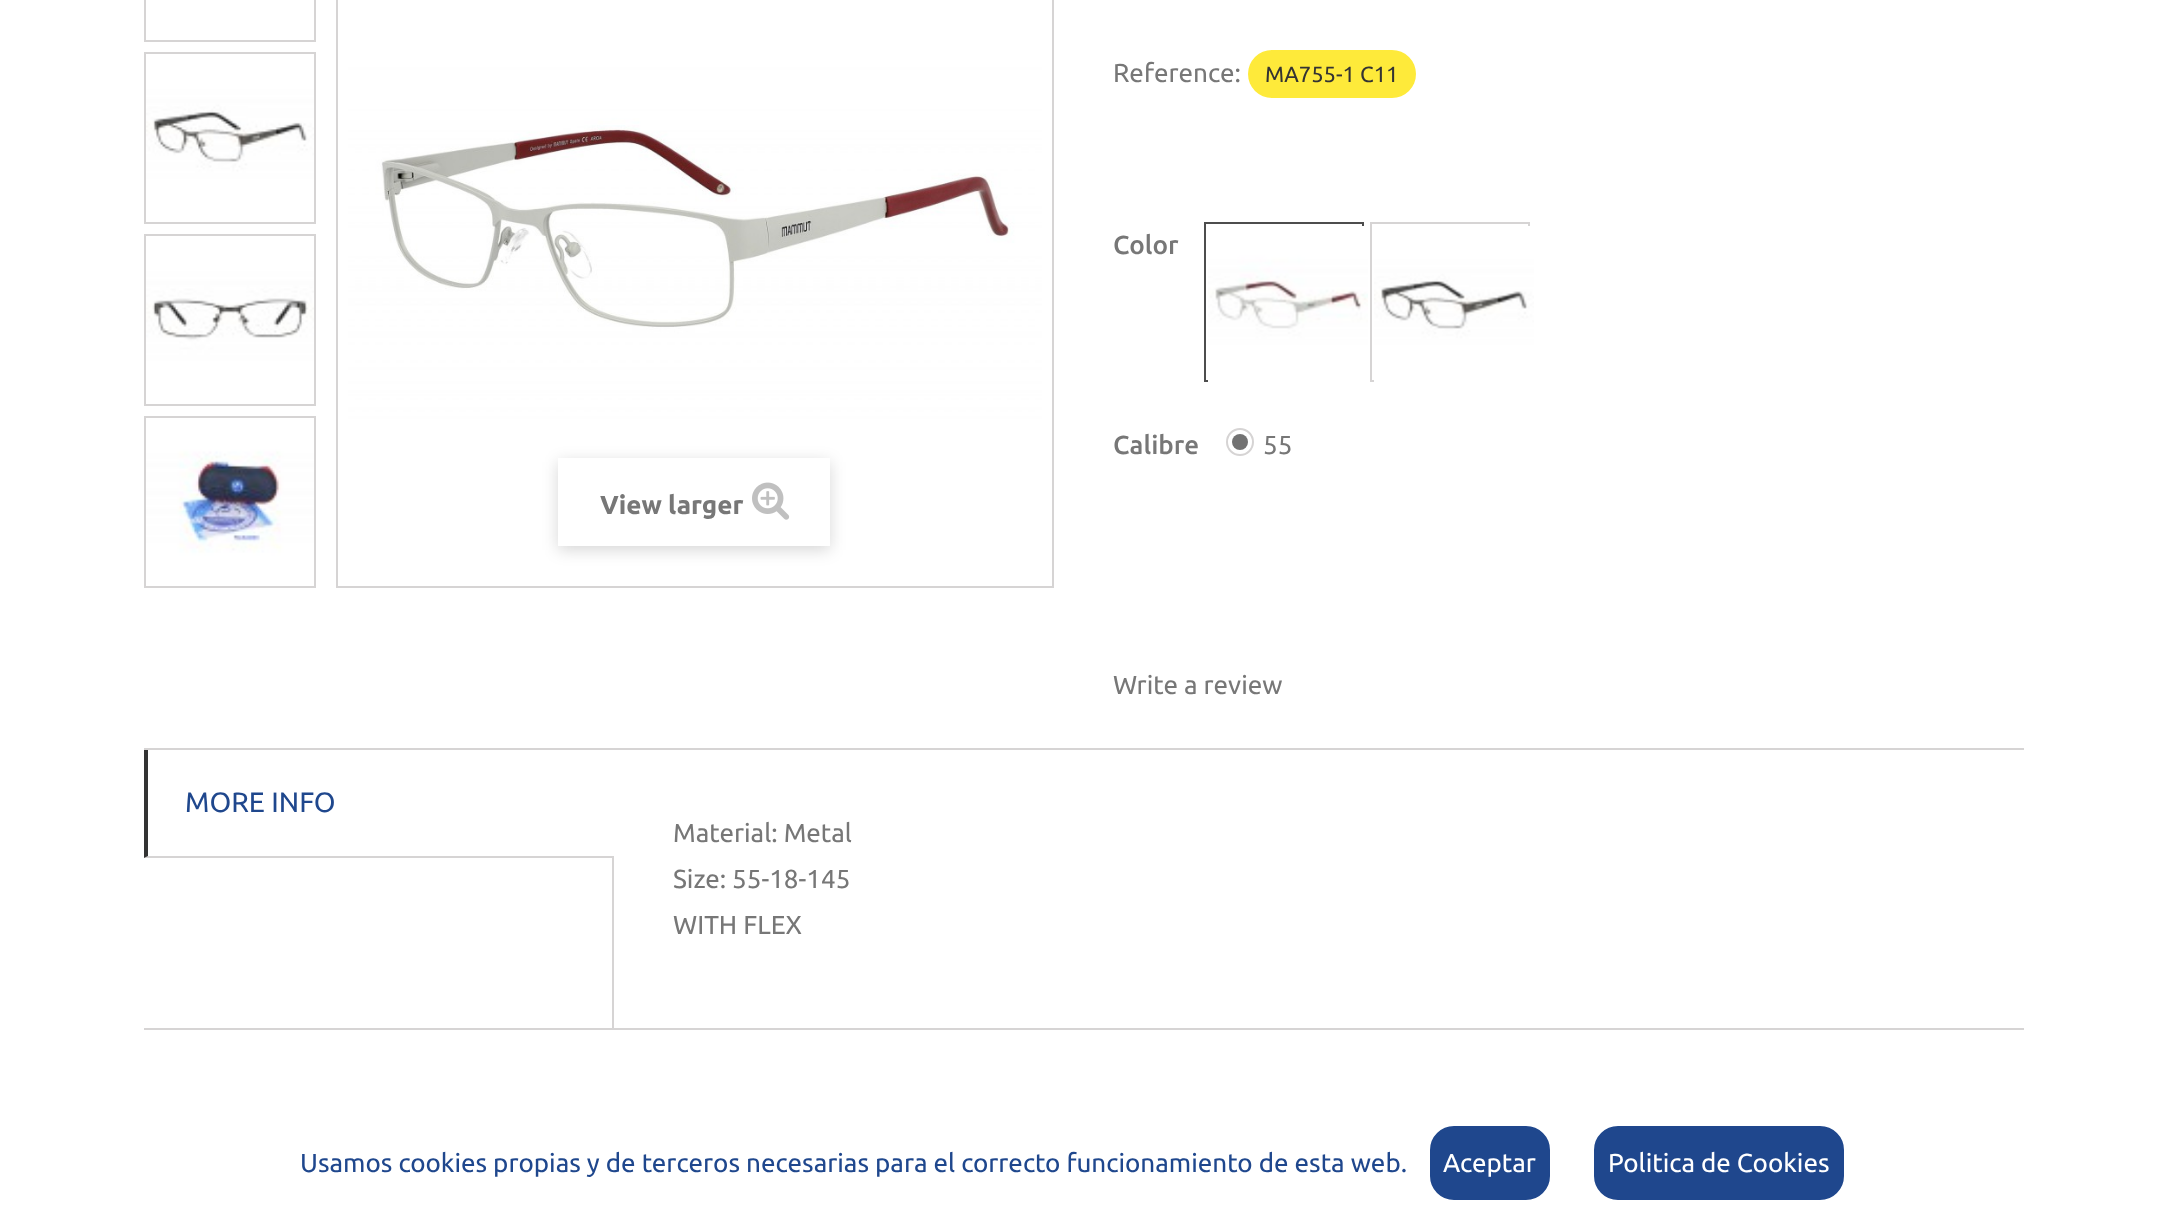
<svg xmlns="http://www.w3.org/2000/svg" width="2165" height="1221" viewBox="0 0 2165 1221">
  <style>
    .t1 { font: bold 26px Ubuntu; fill: #777; }
    .t2 { font: 26px Ubuntu; fill: #777; }
    .t3 { font: 22px Ubuntu; fill: #333; }
    .t4 { font: 500 26px Ubuntu; fill: #777; }
    .t5 { font: 28px Ubuntu; fill: #1f478d; }
    .t6 { font: 26px Ubuntu; fill: #1f478d; }
    .t7 { font: 26px Ubuntu; fill: #fff; }
  </style>
  <defs>
    <clipPath id="clip1"><path d="M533 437H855V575H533ZM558 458H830V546H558Z" clip-rule="evenodd"/></clipPath>
  </defs>
  <rect width="100%" height="100%" fill="#fff"/>
  <rect x="145" y="-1" width="170" height="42" fill="none" stroke="#d6d4d4" stroke-width="2"/>
  <rect x="145" y="53" width="170" height="170" fill="none" stroke="#d6d4d4" stroke-width="2"/>
  <image x="146" y="54" width="168" height="168" href="images/1.png"/>
  <rect x="145" y="235" width="170" height="170" fill="none" stroke="#d6d4d4" stroke-width="2"/>
  <image x="146" y="236" width="168" height="168" href="images/2.png"/>
  <rect x="145" y="417" width="170" height="170" fill="none" stroke="#d6d4d4" stroke-width="2"/>
  <image x="146" y="418" width="168" height="168" href="images/3.png"/>
  <rect x="337" y="-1" width="716" height="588" fill="none" stroke="#d6d4d4" stroke-width="2"/>
  <image x="348" y="0" width="694" height="576" href="images/4.png"/>
  <g clip-path="url(#clip1)">
    <rect x="558" y="462" width="272" height="88" fill="#00000029" filter="blur(8px)"/>
  </g>
  <text x="600" y="514" class="t1">View larger</text>
  <image x="752" y="482" width="38" height="38" href="images/5.png"/>
  <text x="1113" y="82" class="t2">Reference:</text>
  <rect x="1248" y="50" width="168" height="48" rx="24" fill="#feea3a"/>
  <text x="1265" y="82" class="t3">MA755-1 C11</text>
  <text x="1113" y="254" class="t4">Color</text>
  <rect x="1205" y="223" width="158" height="158" fill="none" stroke="#4d4d4d" stroke-width="2"/>
  <image x="1208" y="226" width="160" height="160" href="images/6.png"/>
  <rect x="1371" y="223" width="158" height="158" fill="none" stroke="#d6d4d4" stroke-width="2"/>
  <image x="1374" y="226" width="160" height="160" href="images/7.png"/>
  <text x="1113" y="454" class="t4">Calibre</text>
  <circle cx="1240" cy="442" r="13" fill="none" stroke="#d6d4d4" stroke-width="2"/>
  <circle cx="1240" cy="442" r="8" fill="#727272"/>
  <text x="1263" y="454" class="t2">55</text>
  <text x="1113" y="694" class="t2">Write a review</text>
  <rect x="144" y="748" width="1880" height="2" fill="#d6d4d4"/>
  <rect x="144" y="1028" width="1880" height="2" fill="#d6d4d4"/>
  <path d="M614 858H144L148 856H614Z" fill="#d6d4d4"/>
  <path d="M144 858V750H148V856Z" fill="#333"/>
  <text x="185" y="812" class="t5">MORE INFO</text>
  <rect x="612" y="858" width="2" height="170" fill="#d6d4d4"/>
  <text x="673" y="842" class="t2">Material: Metal</text>
  <text x="673" y="888" class="t2">Size: 55-18-145</text>
  <text x="673" y="934" class="t2">WITH FLEX</text>
  <text x="300" y="1172" class="t6">Usamos cookies propias y de terceros necesarias para el correcto funcionamiento de esta web.</text>
  <rect x="1429" y="1125" width="122" height="76" rx="25" fill="#1f478d" stroke="#fff" stroke-width="2"/>
  <text x="1443" y="1172" class="t7">Aceptar</text>
  <rect x="1593" y="1125" width="252" height="76" rx="25" fill="#1f478d" stroke="#fff" stroke-width="2"/>
  <text x="1608" y="1172" class="t7">Politica de Cookies</text>
</svg>
